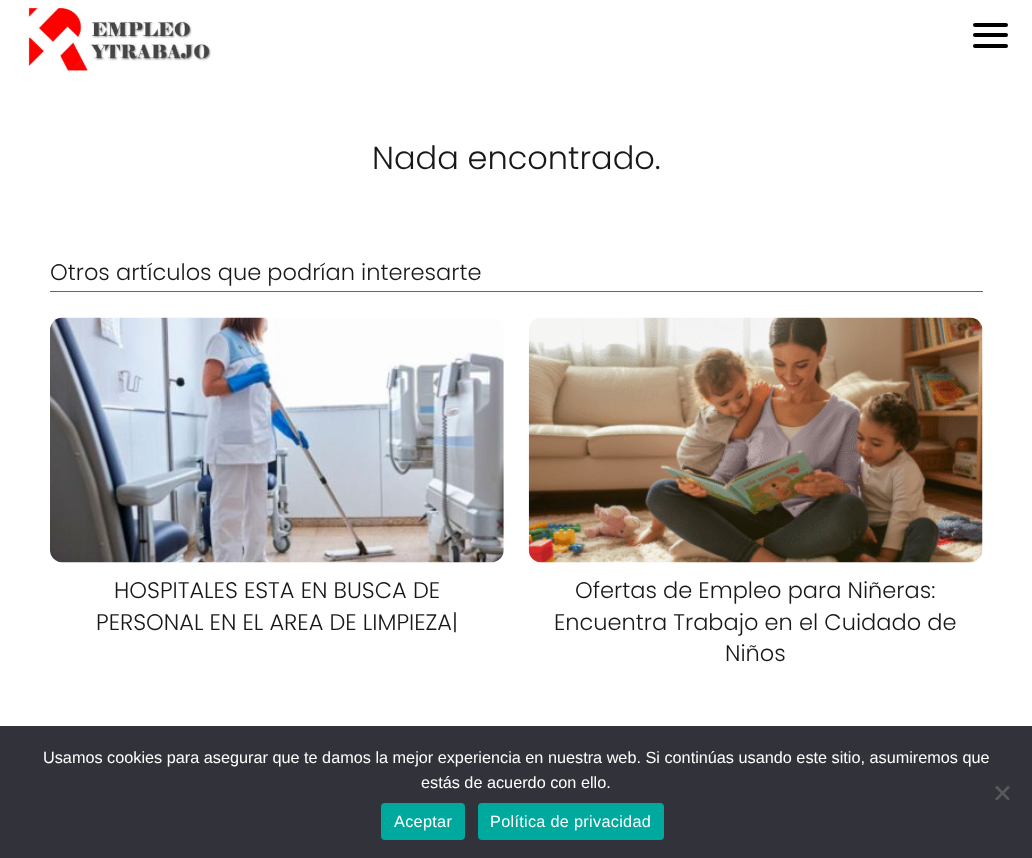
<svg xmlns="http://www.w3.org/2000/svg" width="1032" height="858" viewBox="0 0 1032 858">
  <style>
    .t1 { font: 300 32px Poppins; fill: #181818; }
    .t2 { font: 300 22.5px Poppins; fill: #181818; }
    .t3 { font: 16.25px Liberation Sans; fill: #fff; }
    .t4 { font: 16.25px Liberation Sans; letter-spacing: 0.3px; fill: #fff; }
  </style>
  <rect width="100%" height="100%" fill="#fff"/>
  <image x="27" y="6" width="184" height="65" href="images/1.png"/>
  <rect x="973" y="23" width="35" height="4" rx="2" fill="#000"/>
  <rect x="973" y="33" width="35" height="4" rx="2" fill="#000"/>
  <rect x="973" y="44" width="35" height="4" rx="2" fill="#000"/>
  <text x="372" y="169" class="t1">Nada encontrado.</text>
  <rect x="50" y="291" width="933" height="1" fill="#d33"/>
  <text x="50" y="280" class="t2">Otros artículos que podrían interesarte</text>
  <image x="50" y="317" width="454" height="246" href="images/2.png"/>
  <text x="114" y="598" class="t2">HOSPITALES ESTA EN BUSCA DE</text>
  <text x="96" y="630" class="t2">PERSONAL EN EL AREA DE LIMPIEZA|</text>
  <image x="528" y="317" width="455" height="246" href="images/3.png"/>
  <text x="575" y="598" class="t2">Ofertas de Empleo para Niñeras:</text>
  <text x="554" y="630" class="t2">Encuentra Trabajo en el Cuidado de</text>
  <text x="725" y="661" class="t2">Niños</text>
  <rect x="0" y="726" width="1032" height="132" fill="#32323a"/>
  <text x="43" y="763" class="t3">Usamos cookies para asegurar que te damos la mejor experiencia en nuestra web. Si continúas usando este sitio, asumiremos que</text>
  <text x="421" y="788" class="t3">estás de acuerdo con ello.</text>
  <path d="M1008 785.5L1010 787.5L997 800.5L995 799Z" fill="#59595d"/>
  <path d="M995 787.5L997 785.5L1010 799L1008 800.5Z" fill="#59595d"/>
  <rect x="381" y="803" width="84" height="37" rx="4" fill="#00a99d"/>
  <text x="394" y="827" class="t4">Aceptar</text>
  <rect x="478" y="803" width="186" height="37" rx="4" fill="#00a99d"/>
  <text x="490" y="827" class="t4">Política de privacidad</text>
</svg>
